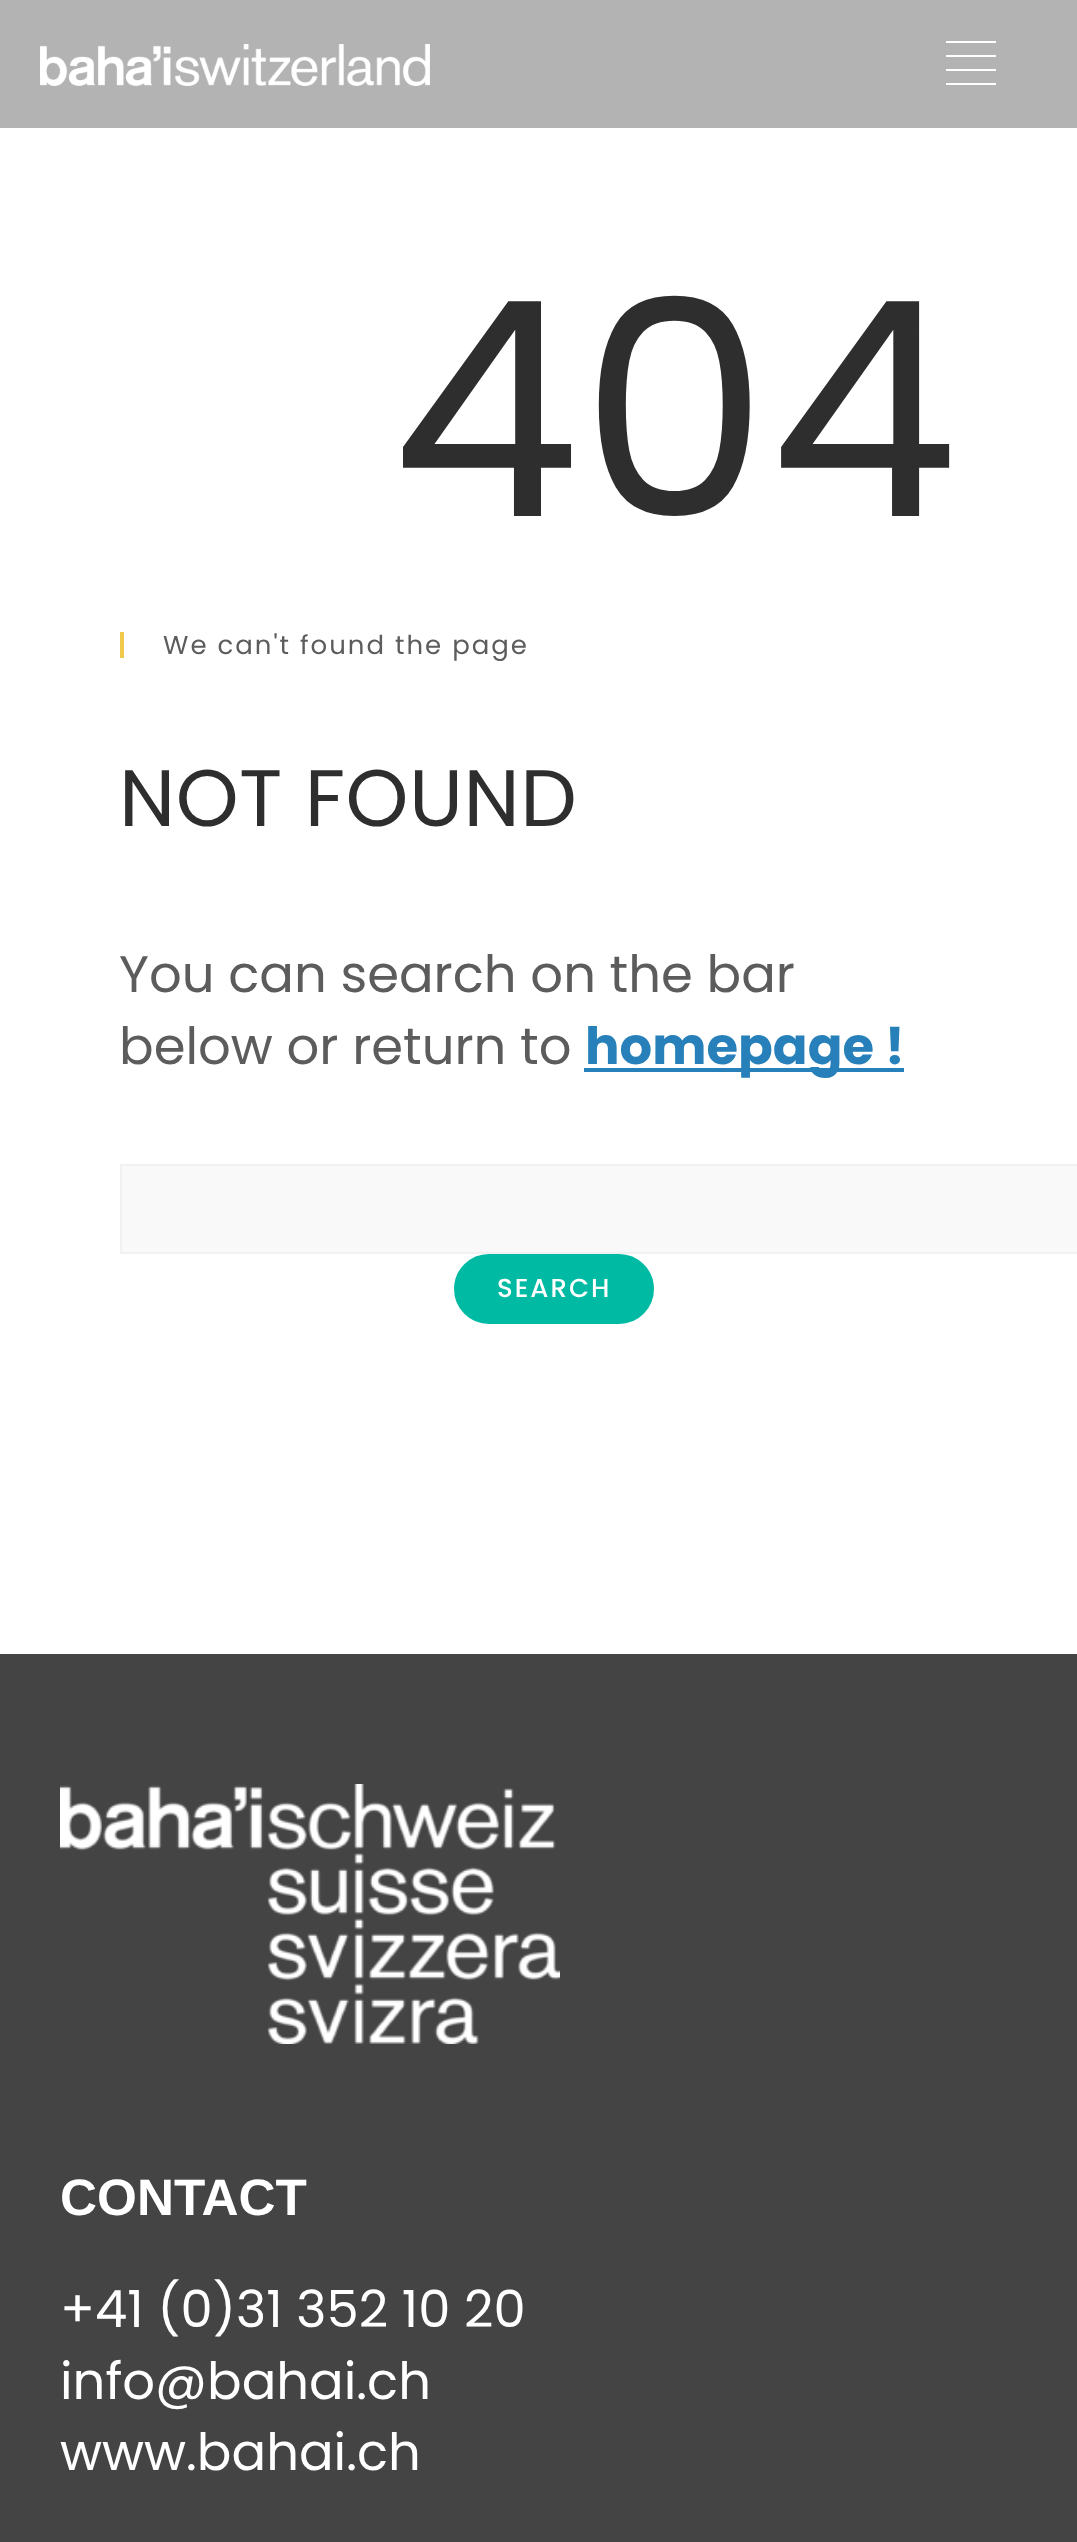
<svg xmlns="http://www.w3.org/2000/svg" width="1077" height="2542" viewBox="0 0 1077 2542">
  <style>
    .t1 { font: 300px Poppins; letter-spacing: 0.5px; fill: #2e2e2e; }
    .t2 { font: 26px Poppins; letter-spacing: 2px; fill: #5c5c5c; }
    .t3 { font: 80px Poppins; letter-spacing: 0.5px; fill: #2e2e2e; }
    .t4 { font: 51.25px Poppins; fill: #5c5c5c; }
    .t5 { font: bold 51.25px Poppins; fill: #2780ba; }
    .t6 { font: 500 26px Poppins; letter-spacing: 2px; fill: #fff; }
    .t7 { font: bold 51.25px Liberation Sans; fill: #fff; }
    .t8 { font: 51.25px Poppins; fill: #fff; }
  </style>
  <rect width="100%" height="100%" fill="#fff"/>
  <rect x="0" y="0" width="1077" height="128" fill="#b3b3b3"/>
  <image x="40" y="44" width="390" height="42" href="images/1.png"/>
  <image x="946" y="41" width="50" height="44" href="images/2.png"/>
  <text x="391" y="516" class="t1">404</text>
  <rect x="120" y="632" width="4" height="26" fill="#efc94c"/>
  <text x="163" y="654" class="t2">We can't found the page</text>
  <text x="119" y="826" class="t3">NOT FOUND</text>
  <text x="119" y="992" class="t4">You can search on the bar</text>
  <text x="119" y="1064" class="t4">below or return to</text>
  <rect x="584" y="1068" width="320" height="4" fill="#2780ba"/>
  <text x="585" y="1064" class="t5">homepage !</text>
  <rect x="121" y="1165" width="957" height="88" fill="#f9f9f9" stroke="#f1f1f1" stroke-width="2"/>
  <rect x="455" y="1255" width="198" height="68" rx="34" fill="#00baa3" stroke="#00baa3" stroke-width="2"/>
  <text x="497" y="1297" class="t6">SEARCH</text>
  <rect x="0" y="1654" width="1077" height="888" fill="#444"/>
  <image x="60" y="1784" width="500" height="260" href="images/3.png"/>
  <text x="60" y="2215" class="t7">CONTACT</text>
  <text x="60" y="2327" class="t8">+41 (0)31 352 10 20</text>
  <text x="60" y="2399" class="t8">info@bahai.ch</text>
  <text x="60" y="2470" class="t8">www.bahai.ch</text>
</svg>
